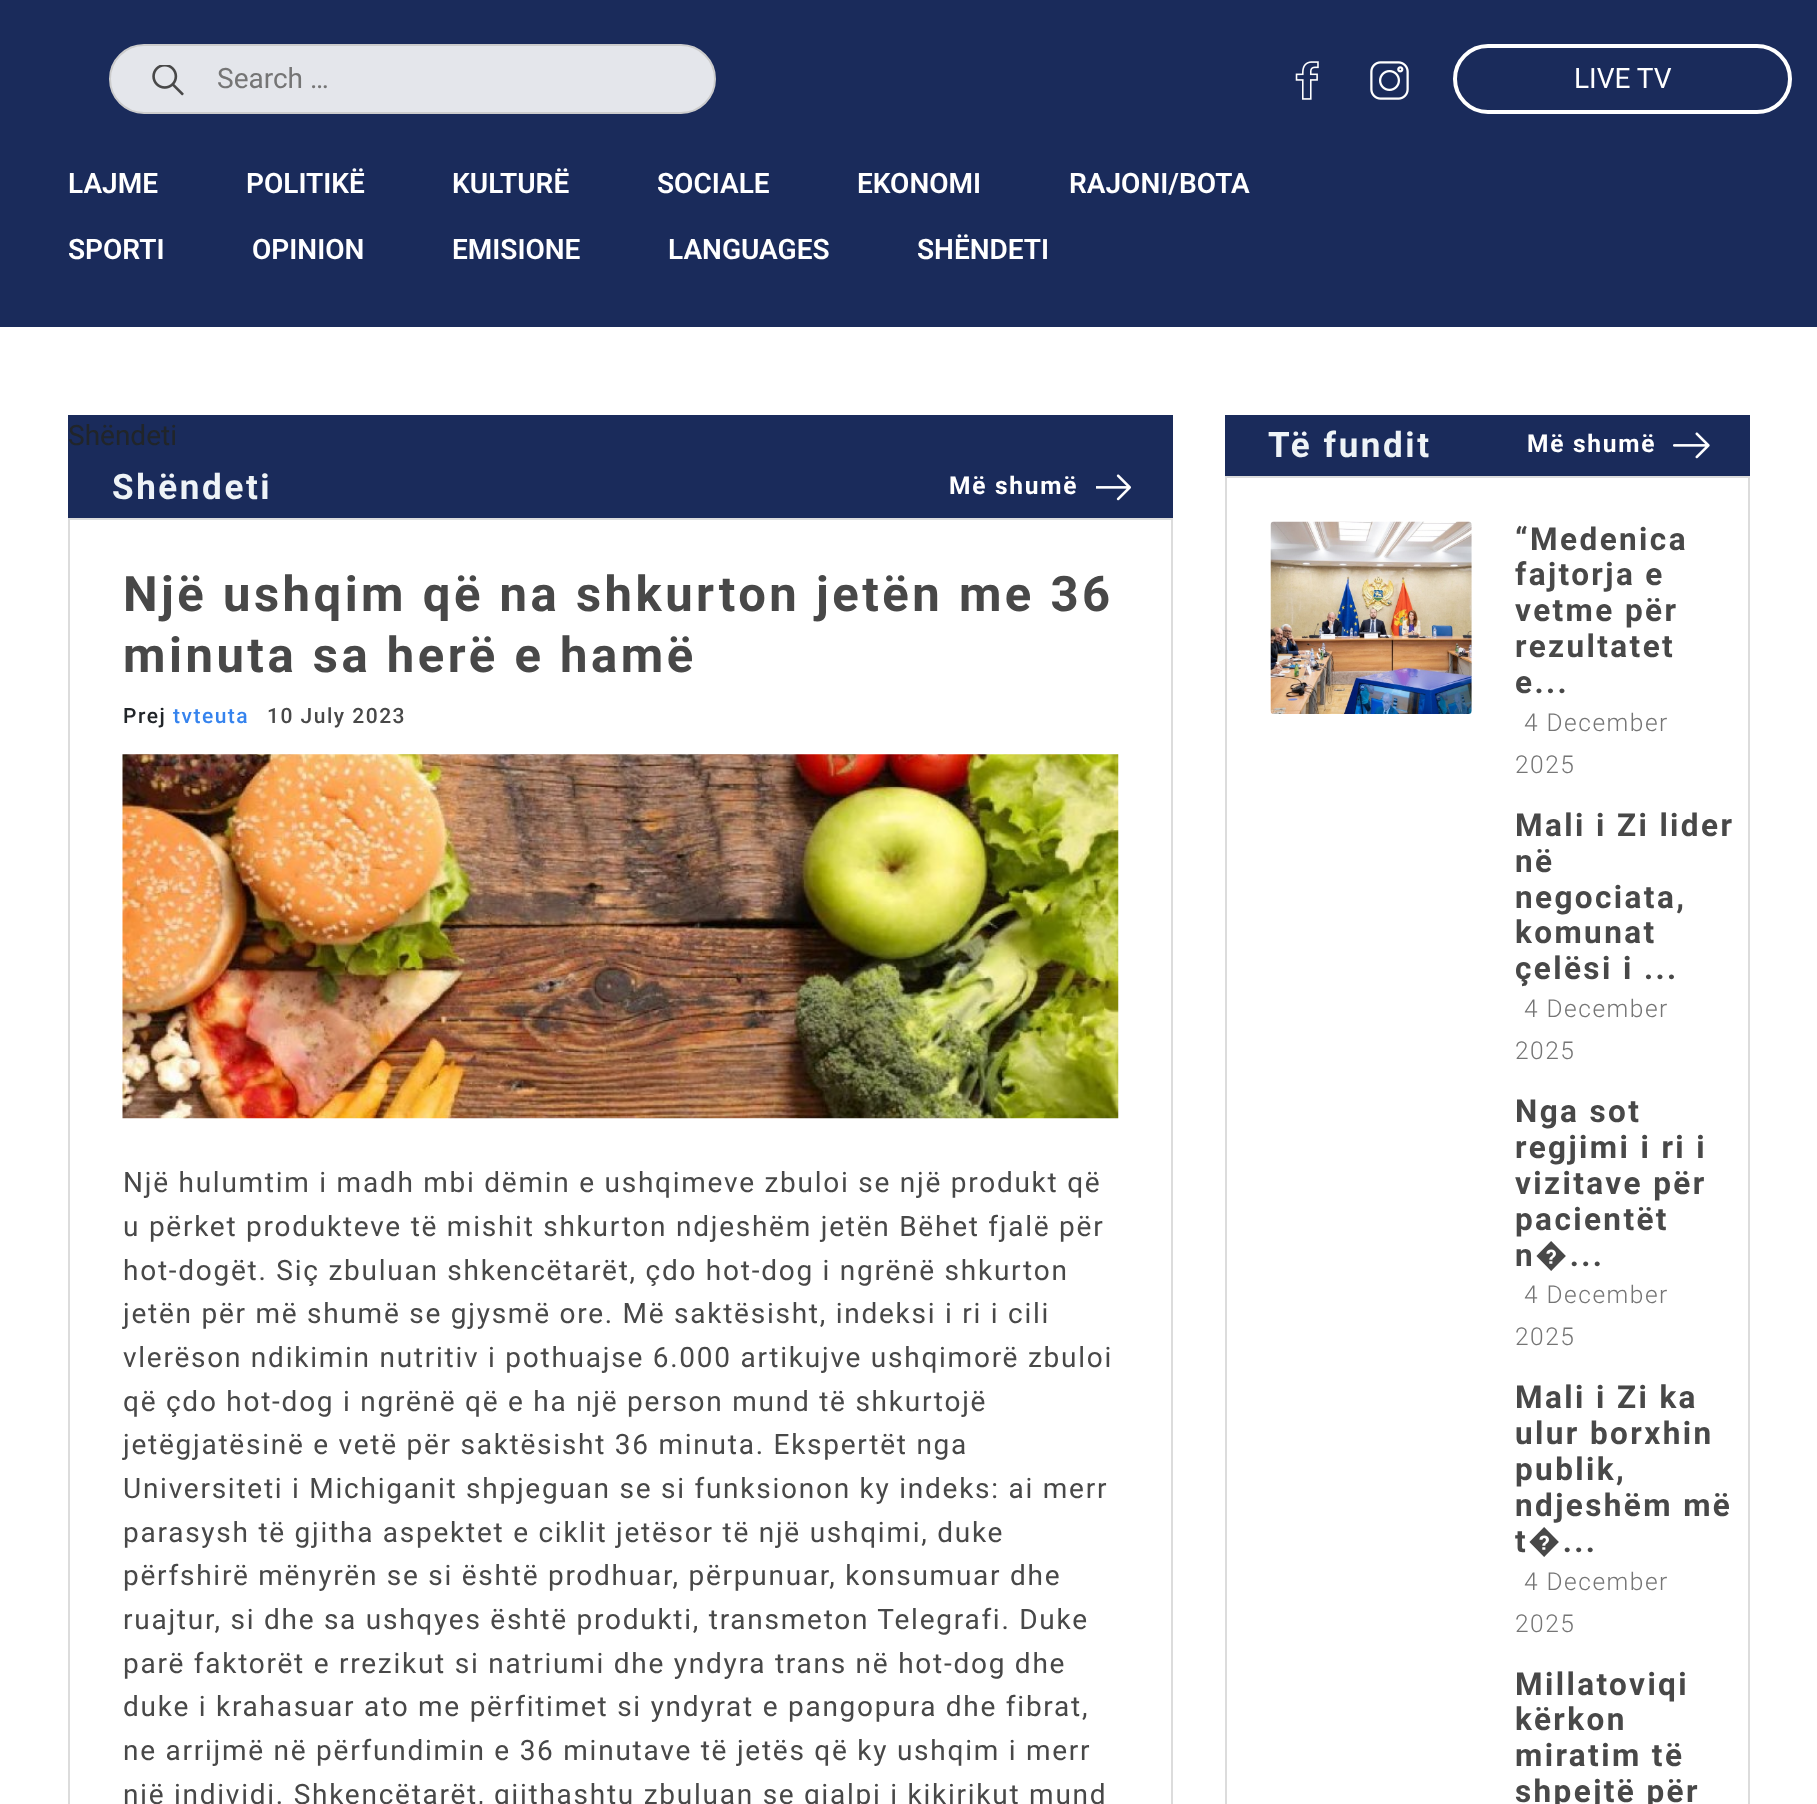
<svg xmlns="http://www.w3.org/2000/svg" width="1817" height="1804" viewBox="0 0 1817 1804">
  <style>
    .t1 { font: 28px Roboto; fill: #757575; }
    .t2 { font: 28px Roboto; fill: #fff; }
    .t3 { font: 600 28px Roboto; fill: #fff; }
    .t4 { font: 28px Roboto; fill: #212529; }
    .t5 { font: bold 35px Roboto; letter-spacing: 2.6px; fill: #eef3f7; }
    .t6 { font: bold 24.5px Roboto; letter-spacing: 1.75px; fill: #fff; }
    .t7 { font: bold 49px Roboto; letter-spacing: 3.5px; fill: #484848; }
    .t8 { font: 500 21px Roboto; letter-spacing: 1.5px; fill: #212529; }
    .t9 { font: 500 21px Roboto; letter-spacing: 1.5px; fill: #3583ee; }
    .t10 { font: 500 21px Roboto; letter-spacing: 1.5px; fill: #484848; }
    .t11 { font: 28px Roboto; letter-spacing: 1.75px; fill: #484848; }
    .t12 { font: bold 31.5px Roboto; letter-spacing: 2.4px; fill: #484848; }
    .t13 { font: 300 24.5px Roboto; letter-spacing: 1.5px; fill: #757575; }
  </style>
  <rect width="100%" height="100%" fill="#fff"/>
  <rect x="0" y="0" width="1817" height="327" fill="#1a2b5b"/>
  <rect x="110" y="45" width="605" height="68" rx="34" fill="#e4e6eb" stroke="#ccc" stroke-width="2"/>
  <image x="152" y="65" width="32" height="31" href="images/1.png"/>
  <text x="217" y="88" class="t1">Search …</text>
  <image x="1295" y="61" width="24" height="39" href="images/2.png"/>
  <image x="1370" y="61" width="39" height="39" href="images/3.png"/>
  <rect x="1455" y="46" width="335" height="66" rx="33" fill="none" stroke="#fff" stroke-width="4"/>
  <text x="1574" y="88" class="t2">LIVE TV</text>
  <text x="68" y="193" class="t3">LAJME</text>
  <text x="246" y="193" class="t3">POLITIKË</text>
  <text x="452" y="193" class="t3">KULTURË</text>
  <text x="657" y="193" class="t3">SOCIALE</text>
  <text x="857" y="193" class="t3">EKONOMI</text>
  <text x="1069" y="193" class="t3">RAJONI/BOTA</text>
  <text x="68" y="259" class="t3">SPORTI</text>
  <text x="252" y="259" class="t3">OPINION</text>
  <text x="452" y="259" class="t3">EMISIONE</text>
  <text x="668" y="259" class="t3">LANGUAGES</text>
  <text x="917" y="259" class="t3">SHËNDETI</text>
  <rect x="68" y="415" width="1105" height="103" fill="#1a2b5b"/>
  <text x="68" y="445" class="t4">Shëndeti</text>
  <text x="112" y="499" class="t5">Shëndeti</text>
  <text x="949" y="494" class="t6">Më shumë</text>
  <image x="1096" y="474" width="35" height="27" href="images/4.png"/>
  <rect x="69" y="519" width="1103" height="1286" fill="none" stroke="#dcdcdc" stroke-width="2"/>
  <text x="123" y="611" class="t7">Një ushqim që na shkurton jetën me 36</text>
  <text x="123" y="672" class="t7">minuta sa herë e hamë</text>
  <text x="123" y="723" class="t8">Prej</text>
  <text x="173" y="723" class="t9">tvteuta</text>
  <text x="267" y="723" class="t10">10 July 2023</text>
  <image x="122" y="754" width="997" height="365" href="images/5.png"/>
  <text x="123" y="1192" class="t11">Një hulumtim i madh mbi dëmin e ushqimeve zbuloi se një produkt që</text>
  <text x="123" y="1236" class="t11">u përket produkteve të mishit shkurton ndjeshëm jetën Bëhet fjalë për</text>
  <text x="123" y="1280" class="t11">hot-dogët. Siç zbuluan shkencëtarët, çdo hot-dog i ngrënë shkurton</text>
  <text x="123" y="1323" class="t11">jetën për më shumë se gjysmë ore. Më saktësisht, indeksi i ri i cili</text>
  <text x="123" y="1367" class="t11">vlerëson ndikimin nutritiv i pothuajse 6.000 artikujve ushqimorë zbuloi</text>
  <text x="123" y="1411" class="t11">që çdo hot-dog i ngrënë që e ha një person mund të shkurtojë</text>
  <text x="123" y="1454" class="t11">jetëgjatësinë e vetë për saktësisht 36 minuta. Ekspertët nga</text>
  <text x="123" y="1498" class="t11">Universiteti i Michiganit shpjeguan se si funksionon ky indeks: ai merr</text>
  <text x="123" y="1542" class="t11">parasysh të gjitha aspektet e ciklit jetësor të një ushqimi, duke</text>
  <text x="123" y="1585" class="t11">përfshirë mënyrën se si është prodhuar, përpunuar, konsumuar dhe</text>
  <text x="123" y="1629" class="t11">ruajtur, si dhe sa ushqyes është produkti, transmeton Telegrafi. Duke</text>
  <text x="123" y="1673" class="t11">parë faktorët e rrezikut si natriumi dhe yndyra trans në hot-dog dhe</text>
  <text x="123" y="1716" class="t11">duke i krahasuar ato me përfitimet si yndyrat e pangopura dhe fibrat,</text>
  <text x="123" y="1760" class="t11">ne arrijmë në përfundimin e 36 minutave të jetës që ky ushqim i merr</text>
  <text x="123" y="1804" class="t11">një individi. Shkencëtarët, gjithashtu zbuluan se gjalpi i kikirikut mund</text>
  <rect x="1225" y="415" width="525" height="61" fill="#1a2b5b"/>
  <text x="1268" y="457" class="t5">Të fundit</text>
  <text x="1527" y="452" class="t6">Më shumë</text>
  <image x="1673" y="432" width="37" height="27" href="images/6.png"/>
  <rect x="1226" y="477" width="523" height="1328" fill="none" stroke="#dcdcdc" stroke-width="2"/>
  <image x="1270" y="521" width="202" height="193" href="images/7.png"/>
  <text x="1515" y="550" class="t12">“Medenica</text>
  <text x="1515" y="585" class="t12">fajtorja e</text>
  <text x="1515" y="621" class="t12">vetme për</text>
  <text x="1515" y="657" class="t12">rezultatet</text>
  <text x="1515" y="693" class="t12">e...</text>
  <text x="1524" y="731" class="t13">4 December</text>
  <text x="1515" y="773" class="t13">2025</text>
  <text x="1515" y="836" class="t12">Mali i Zi lider</text>
  <text x="1515" y="872" class="t12">në</text>
  <text x="1515" y="908" class="t12">negociata,</text>
  <text x="1515" y="943" class="t12">komunat</text>
  <text x="1515" y="979" class="t12">çelësi i ...</text>
  <text x="1524" y="1017" class="t13">4 December</text>
  <text x="1515" y="1059" class="t13">2025</text>
  <text x="1515" y="1122" class="t12">Nga sot</text>
  <text x="1515" y="1158" class="t12">regjimi i ri i</text>
  <text x="1515" y="1194" class="t12">vizitave për</text>
  <text x="1515" y="1230" class="t12">pacientët</text>
  <text x="1515" y="1266" class="t12">n�...</text>
  <text x="1524" y="1303" class="t13">4 December</text>
  <text x="1515" y="1345" class="t13">2025</text>
  <text x="1515" y="1408" class="t12">Mali i Zi ka</text>
  <text x="1515" y="1444" class="t12">ulur borxhin</text>
  <text x="1515" y="1480" class="t12">publik,</text>
  <text x="1515" y="1516" class="t12">ndjeshëm më</text>
  <text x="1515" y="1552" class="t12">t�...</text>
  <text x="1524" y="1590" class="t13">4 December</text>
  <text x="1515" y="1632" class="t13">2025</text>
  <text x="1515" y="1695" class="t12">Millatoviqi</text>
  <text x="1515" y="1730" class="t12">kërkon</text>
  <text x="1515" y="1766" class="t12">miratim të</text>
  <text x="1515" y="1802" class="t12">shpejtë për</text>
</svg>
